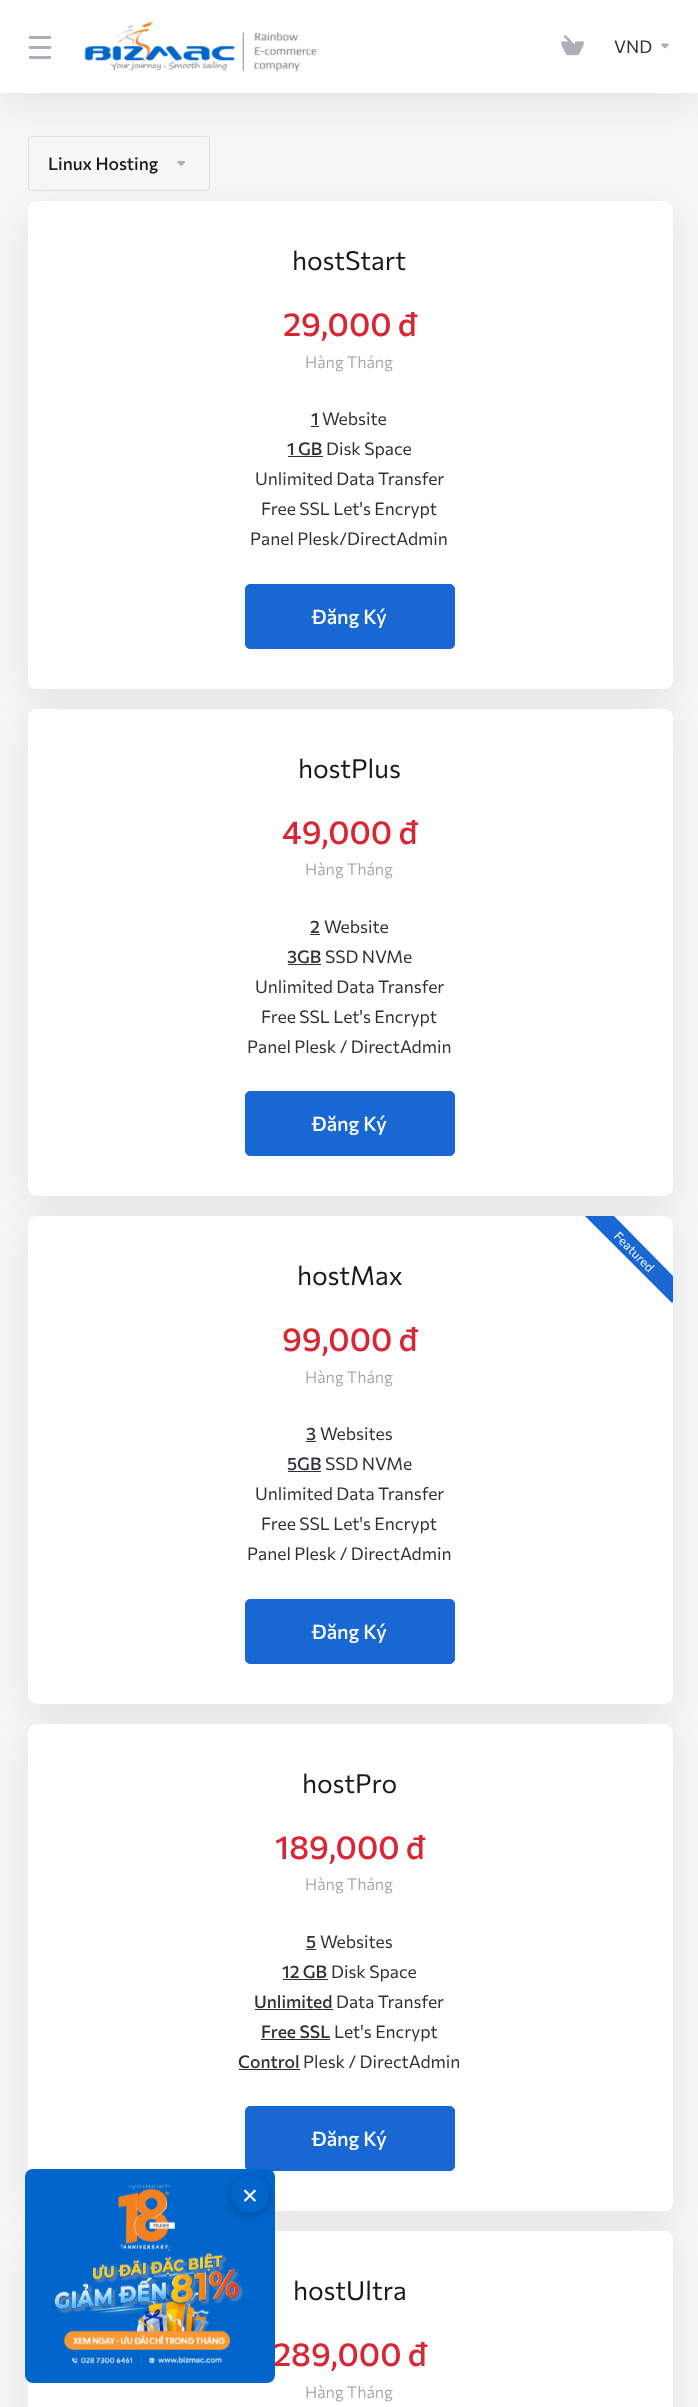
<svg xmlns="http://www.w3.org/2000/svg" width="698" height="2407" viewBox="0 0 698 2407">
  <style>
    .t1 { font: 17.5px Commissioner; fill: #2f3137; }
    .t2 { font: 500 17.5px Commissioner; fill: #17191c; }
    .t3 { font: 26.25px Commissioner; fill: #17191c; }
    .t4 { font: 500 32.5px Commissioner; fill: #d92632; }
    .t5 { font: 300 16.25px Commissioner; fill: #979ba4; }
    .t6 { font: 500 17.5px Commissioner; fill: #2f3137; }
    .t7 { font: 500 20px Commissioner; fill: #fff; }
    .t8 { font: 12.5px Commissioner; fill: #fff; }
    .t9 { font: 28px Commissioner; fill: #fff; }
  </style>
  <rect width="100%" height="100%" fill="#f7f7f8"/>
  <rect x="28.5" y="136.5" width="181" height="54" rx="3.5" fill="none" stroke="#dee0e3"/>
  <image x="177" y="160" width="8" height="6" href="images/4.png"/>
  <rect x="0" y="10" width="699" height="93" fill="#00000014" filter="blur(20px)"/>
  <rect x="0" y="0" width="698" height="93" fill="#fff"/>
  <rect x="29" y="36" width="22" height="3" fill="#acafb9"/>
  <rect x="29" y="46" width="22" height="3" fill="#acafb9"/>
  <rect x="29" y="56" width="22" height="3" fill="#acafb9"/>
  <image x="84" y="21" width="233" height="51" href="images/1.png"/>
  <image x="561" y="35" width="23" height="21" href="images/2.png"/>
  <text x="614" y="53" class="t1">VND</text>
  <image x="661" y="43" width="8" height="6" href="images/3.png"/>
  <text x="48" y="170" class="t2">Linux Hosting</text>
  <rect x="28" y="211" width="645" height="488" rx="8" fill="#00000014" filter="blur(20px)"/>
  <rect x="28" y="201" width="645" height="488" rx="8" fill="#0000001f" filter="blur(0.5px)"/>
  <rect x="28" y="201" width="645" height="488" rx="8" fill="#fff"/>
  <text x="292" y="270" class="t3">hostStart</text>
  <text x="283" y="336" class="t4">29,000 đ</text>
  <text x="305" y="368" class="t5">Hàng Tháng</text>
  <text x="311" y="425" class="t6">1</text>
  <rect x="311" y="426" width="8" height="1" fill="#2f3137"/>
  <text x="322" y="425" class="t1">Website</text>
  <text x="287" y="455" class="t6">1 GB</text>
  <rect x="288" y="456" width="35" height="1" fill="#2f3137"/>
  <text x="326" y="455" class="t1">Disk Space</text>
  <text x="255" y="485" class="t1">Unlimited Data Transfer</text>
  <text x="261" y="515" class="t1">Free SSL Let's Encrypt</text>
  <text x="250" y="545" class="t1">Panel Plesk/DirectAdmin</text>
  <rect x="245.5" y="584.5" width="209" height="64" rx="4.5" fill="#1967d2" stroke="#1967d2"/>
  <text x="312" y="624" class="t7">Đăng Ký</text>
  <rect x="28" y="719" width="645" height="487" rx="8" fill="#00000014" filter="blur(20px)"/>
  <rect x="28" y="709" width="645" height="487" rx="8" fill="#0000001f" filter="blur(0.5px)"/>
  <rect x="28" y="709" width="645" height="487" rx="8" fill="#fff"/>
  <text x="298" y="778" class="t3">hostPlus</text>
  <text x="282" y="844" class="t4">49,000 đ</text>
  <text x="305" y="875" class="t5">Hàng Tháng</text>
  <text x="310" y="933" class="t6">2</text>
  <rect x="310" y="934" width="10" height="1" fill="#2f3137"/>
  <text x="324" y="933" class="t1">Website</text>
  <text x="287" y="963" class="t6">3GB</text>
  <rect x="288" y="964" width="33" height="1" fill="#2f3137"/>
  <text x="325" y="963" class="t1">SSD NVMe</text>
  <text x="255" y="993" class="t1">Unlimited Data Transfer</text>
  <text x="261" y="1023" class="t1">Free SSL Let's Encrypt</text>
  <text x="247" y="1053" class="t1">Panel Plesk / DirectAdmin</text>
  <rect x="245.5" y="1091.5" width="209" height="64" rx="4.5" fill="#1967d2" stroke="#1967d2"/>
  <text x="312" y="1131" class="t7">Đăng Ký</text>
  <rect x="28" y="1226" width="645" height="488" rx="8" fill="#00000014" filter="blur(20px)"/>
  <rect x="28" y="1216" width="645" height="488" rx="8" fill="#0000001f" filter="blur(0.5px)"/>
  <rect x="28" y="1216" width="645" height="488" rx="8" fill="#fff"/>
  <path d="M673 1302L672 1303L585 1216H614L673 1276Z" fill="#1967d2"/>
  <text x="613" y="1237" transform="rotate(45 613 1237)" class="t8">Featured</text>
  <text x="297" y="1285" class="t3">hostMax</text>
  <text x="282" y="1351" class="t4">99,000 đ</text>
  <text x="305" y="1383" class="t5">Hàng Tháng</text>
  <text x="306" y="1440" class="t6">3</text>
  <rect x="306" y="1441" width="10" height="1" fill="#2f3137"/>
  <text x="320" y="1440" class="t1">Websites</text>
  <text x="287" y="1470" class="t6">5GB</text>
  <rect x="288" y="1471" width="33" height="1" fill="#2f3137"/>
  <text x="325" y="1470" class="t1">SSD NVMe</text>
  <text x="255" y="1500" class="t1">Unlimited Data Transfer</text>
  <text x="261" y="1530" class="t1">Free SSL Let's Encrypt</text>
  <text x="247" y="1560" class="t1">Panel Plesk / DirectAdmin</text>
  <rect x="245.5" y="1599.5" width="209" height="64" rx="4.5" fill="#1967d2" stroke="#1967d2"/>
  <text x="312" y="1639" class="t7">Đăng Ký</text>
  <rect x="28" y="1734" width="645" height="487" rx="8" fill="#00000014" filter="blur(20px)"/>
  <rect x="28" y="1724" width="645" height="487" rx="8" fill="#0000001f" filter="blur(0.5px)"/>
  <rect x="28" y="1724" width="645" height="487" rx="8" fill="#fff"/>
  <text x="302" y="1793" class="t3">hostPro</text>
  <text x="275" y="1859" class="t4">189,000 đ</text>
  <text x="305" y="1890" class="t5">Hàng Tháng</text>
  <text x="306" y="1948" class="t6">5</text>
  <rect x="306" y="1949" width="10" height="1" fill="#2f3137"/>
  <text x="320" y="1948" class="t1">Websites</text>
  <text x="282" y="1978" class="t6">12 GB</text>
  <rect x="283" y="1979" width="45" height="1" fill="#2f3137"/>
  <text x="331" y="1978" class="t1">Disk Space</text>
  <text x="254" y="2008" class="t6">Unlimited</text>
  <rect x="255" y="2009" width="78" height="1" fill="#2f3137"/>
  <text x="336" y="2008" class="t1">Data Transfer</text>
  <text x="261" y="2038" class="t6">Free SSL</text>
  <rect x="261" y="2039" width="69" height="1" fill="#2f3137"/>
  <text x="334" y="2038" class="t1">Let's Encrypt</text>
  <text x="238" y="2068" class="t6">Control</text>
  <rect x="239" y="2069" width="61" height="1" fill="#2f3137"/>
  <text x="303" y="2068" class="t1">Plesk / DirectAdmin</text>
  <rect x="245.5" y="2106.5" width="209" height="64" rx="4.5" fill="#1967d2" stroke="#1967d2"/>
  <text x="312" y="2146" class="t7">Đăng Ký</text>
  <rect x="28" y="2241" width="645" height="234" rx="8" fill="#00000014" filter="blur(20px)"/>
  <rect x="28" y="2231" width="645" height="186" rx="8" fill="#0000001f" filter="blur(0.5px)"/>
  <rect x="28" y="2231" width="645" height="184" rx="8" fill="#fff"/>
  <text x="293" y="2300" class="t3">hostUltra</text>
  <text x="273" y="2366" class="t4">289,000 đ</text>
  <text x="305" y="2398" class="t5">Hàng Tháng</text>
  <rect x="25" y="2169" width="250" height="214" rx="8" fill="#06c"/>
  <image x="54" y="2183" width="190" height="181" href="images/5.png"/>
  <rect x="231" y="2178" width="38" height="37" rx="18.5" fill="#0000004d" filter="blur(5px)"/>
  <circle cx="250" cy="2194" r="19" fill="#06c"/>
  <text x="242" y="2204" class="t9">×</text>
</svg>
